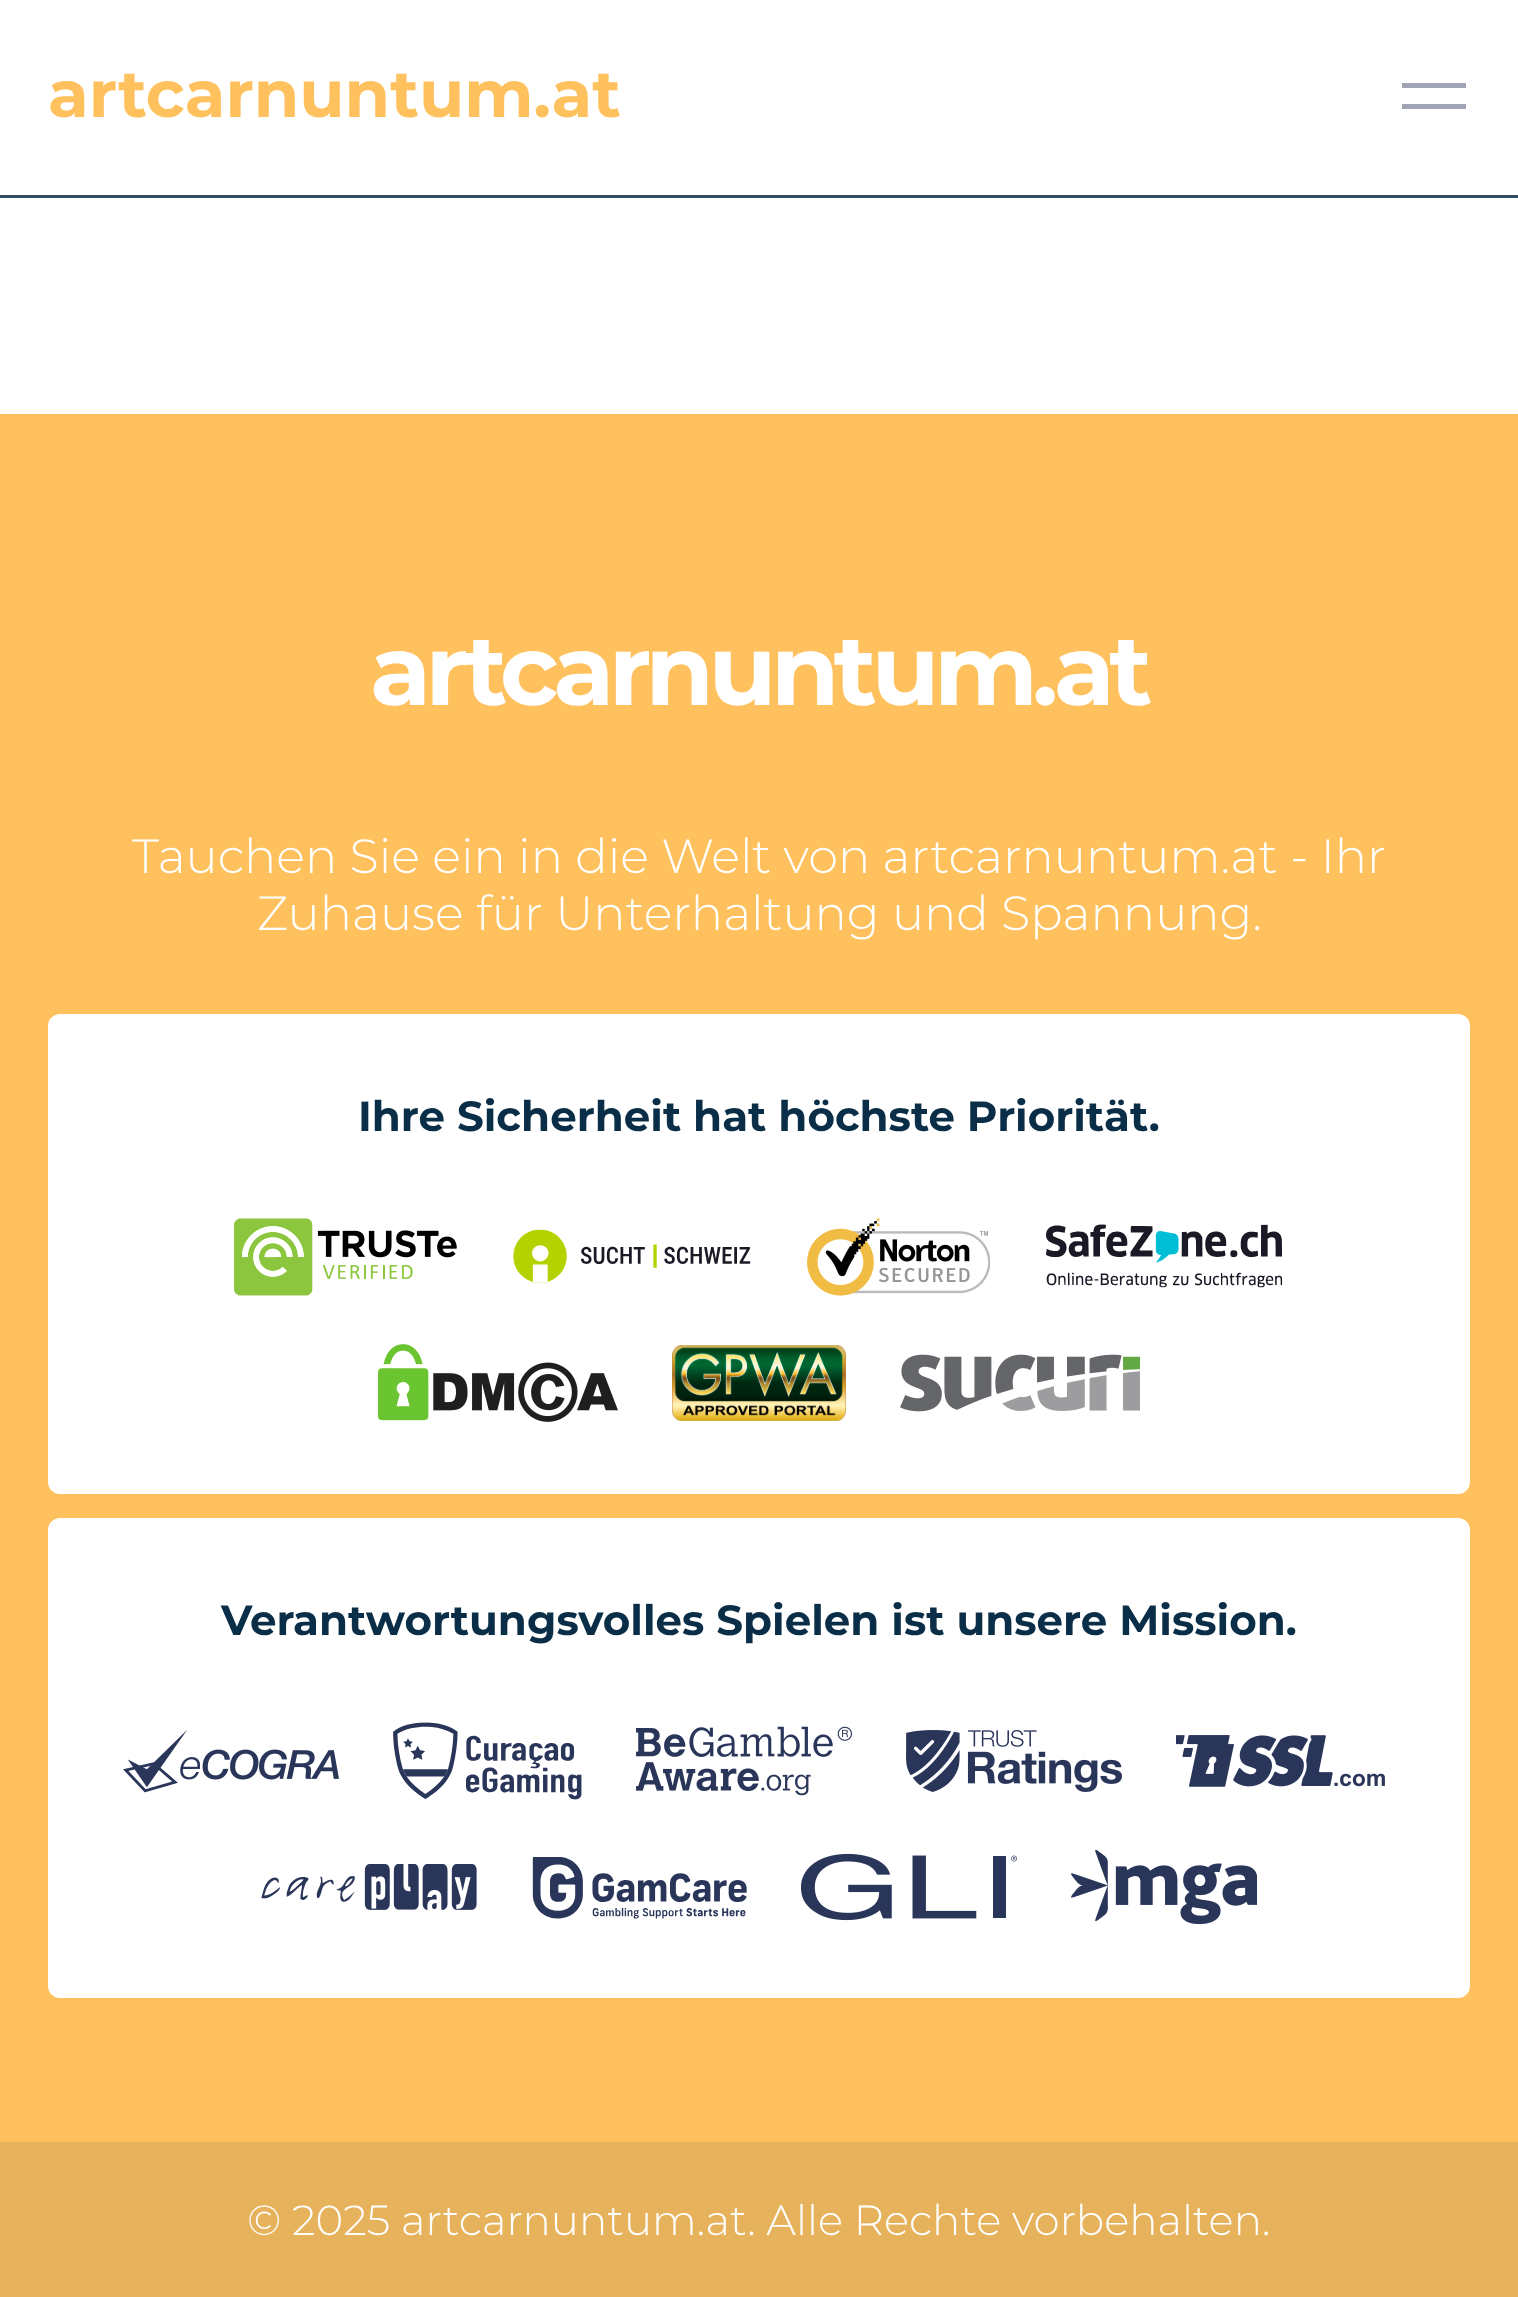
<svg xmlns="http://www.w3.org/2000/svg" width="1518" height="2297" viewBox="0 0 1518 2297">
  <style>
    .t1 { font: 100 66px Montserrat; fill: #ffc15e; }
    .t2 { font: 100 99px Montserrat; letter-spacing: -5.5px; fill: #fff; }
    .t3 { font: 100 48px 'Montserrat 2'; fill: #fff; }
    .t4 { font: 100 42px Montserrat; fill: #0a2e47; }
    .t5 { font: 100 42px 'Montserrat 2'; fill: #fff; }
  </style>
  <rect width="100%" height="100%" fill="#fff"/>
  <rect x="0" y="195" width="1518" height="3" fill="#2e4d62"/>
  <text x="48" y="117" class="t1">artcarnuntum.at</text>
  <rect x="1402" y="83" width="64" height="5" fill="#a0a4b5"/>
  <rect x="1402" y="104" width="64" height="5" fill="#a0a4b5"/>
  <rect x="0" y="414" width="1518" height="1728" fill="#ffc15e"/>
  <text x="370" y="705" class="t2">artcarnuntum.at</text>
  <text x="132" y="873" class="t3">Tauchen Sie ein in die Welt von artcarnuntum.at - Ihr</text>
  <text x="257" y="930" class="t3">Zuhause für Unterhaltung und Spannung.</text>
  <rect x="48" y="1014" width="1422" height="480" rx="12" fill="#fff"/>
  <text x="358" y="1131" class="t4">Ihre Sicherheit hat höchste Priorität.</text>
  <image x="234" y="1218" width="223" height="78" href="images/1.png"/>
  <image x="513" y="1229" width="238" height="54" href="images/2.png"/>
  <image x="807" y="1218" width="183" height="78" href="images/3.png"/>
  <image x="1046" y="1224" width="237" height="64" href="images/4.png"/>
  <image x="378" y="1344" width="240" height="78" href="images/5.png"/>
  <image x="672" y="1345" width="174" height="76" href="images/6.png"/>
  <image x="900" y="1354" width="240" height="58" href="images/7.png"/>
  <rect x="48" y="1518" width="1422" height="480" rx="12" fill="#fff"/>
  <text x="221" y="1635" class="t4">Verantwortungsvolles Spielen ist unsere Mission.</text>
  <image x="123" y="1730" width="216" height="63" href="images/8.png"/>
  <image x="393" y="1722" width="189" height="78" href="images/9.png"/>
  <image x="636" y="1726" width="216" height="70" href="images/10.png"/>
  <image x="906" y="1730" width="216" height="62" href="images/11.png"/>
  <image x="1176" y="1735" width="209" height="52" href="images/12.png"/>
  <image x="261" y="1864" width="216" height="46" href="images/13.png"/>
  <image x="532" y="1857" width="215" height="62" href="images/14.png"/>
  <image x="801" y="1853" width="216" height="68" href="images/15.png"/>
  <image x="1071" y="1849" width="186" height="76" href="images/16.png"/>
  <rect x="0" y="2142" width="1518" height="155" fill="#e7b25c"/>
  <text x="247" y="2235" class="t5">© 2025 artcarnuntum.at. Alle Rechte vorbehalten.</text>
</svg>
